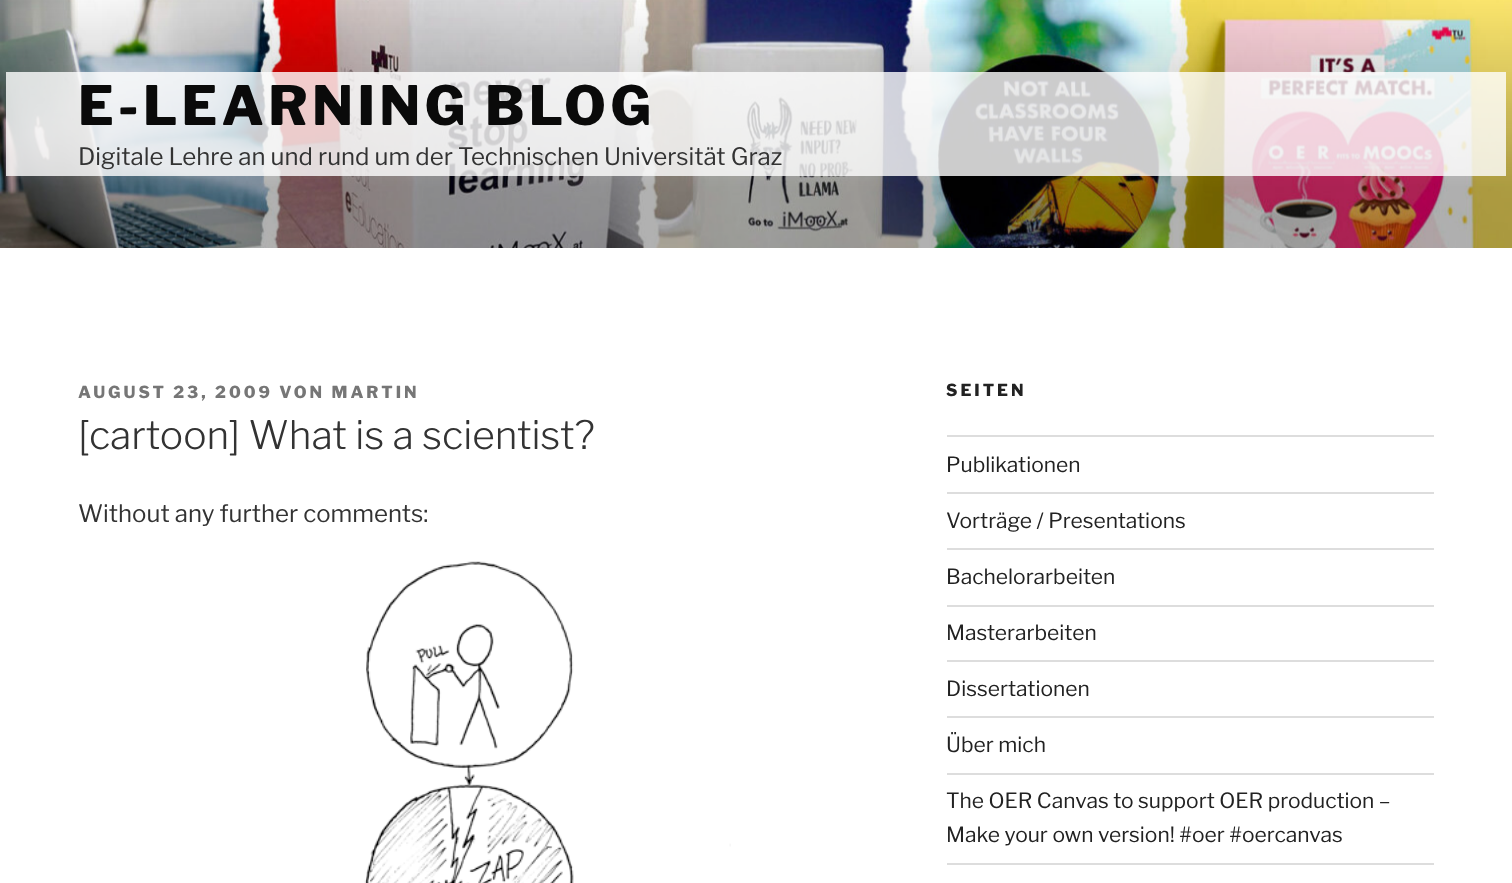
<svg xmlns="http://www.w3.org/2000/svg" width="1512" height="883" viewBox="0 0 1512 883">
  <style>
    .t1 { font: 800 54px Libre Franklin; letter-spacing: 4.3px; fill: #0a0a0a; }
    .t2 { font: 24px Libre Franklin; fill: #333; }
    .t3 { font: 800 16.5px Libre Franklin; letter-spacing: 3px; fill: #767676; }
    .t4 { font: 300 39px Libre Franklin; fill: #333; }
    .t5 { font: 800 16.5px Libre Franklin; letter-spacing: 3px; fill: #222; }
    .t6 { font: 21px Libre Franklin; fill: #222; }
  </style>
  <rect width="100%" height="100%" fill="#fff"/>
  <image x="0" y="0" width="1512" height="248" href="images/1.png"/>
  <rect x="6" y="72" width="1500" height="104" fill="#ffffffcc"/>
  <text x="78" y="125" class="t1">E-LEARNING BLOG</text>
  <text x="78" y="165" class="t2">Digitale Lehre an und rund um der Technischen Universität Graz</text>
  <text x="78" y="398" class="t3">AUGUST 23, 2009 VON MARTIN</text>
  <text x="78" y="449" class="t4">[cartoon] What is a scientist?</text>
  <text x="78" y="522" class="t2">Without any further comments:</text>
  <image x="364" y="561" width="367" height="322" href="images/2.png"/>
  <text x="946" y="396" class="t5">SEITEN</text>
  <rect x="947" y="435" width="487" height="2" fill="#ddd"/>
  <rect x="947" y="492" width="487" height="2" fill="#ddd"/>
  <text x="946" y="472" class="t6">Publikationen</text>
  <rect x="947" y="548" width="487" height="2" fill="#ddd"/>
  <text x="946" y="528" class="t6">Vorträge / Presentations</text>
  <rect x="947" y="605" width="487" height="2" fill="#ddd"/>
  <text x="946" y="584" class="t6">Bachelorarbeiten</text>
  <rect x="947" y="660" width="487" height="2" fill="#ddd"/>
  <text x="946" y="640" class="t6">Masterarbeiten</text>
  <rect x="947" y="716" width="487" height="2" fill="#ddd"/>
  <text x="946" y="696" class="t6">Dissertationen</text>
  <rect x="947" y="773" width="487" height="2" fill="#ddd"/>
  <text x="946" y="752" class="t6">Über mich</text>
  <rect x="947" y="863" width="487" height="2" fill="#ddd"/>
  <text x="946" y="808" class="t6">The OER Canvas to support OER production –</text>
  <text x="946" y="842" class="t6">Make your own version! #oer #oercanvas</text>
</svg>
